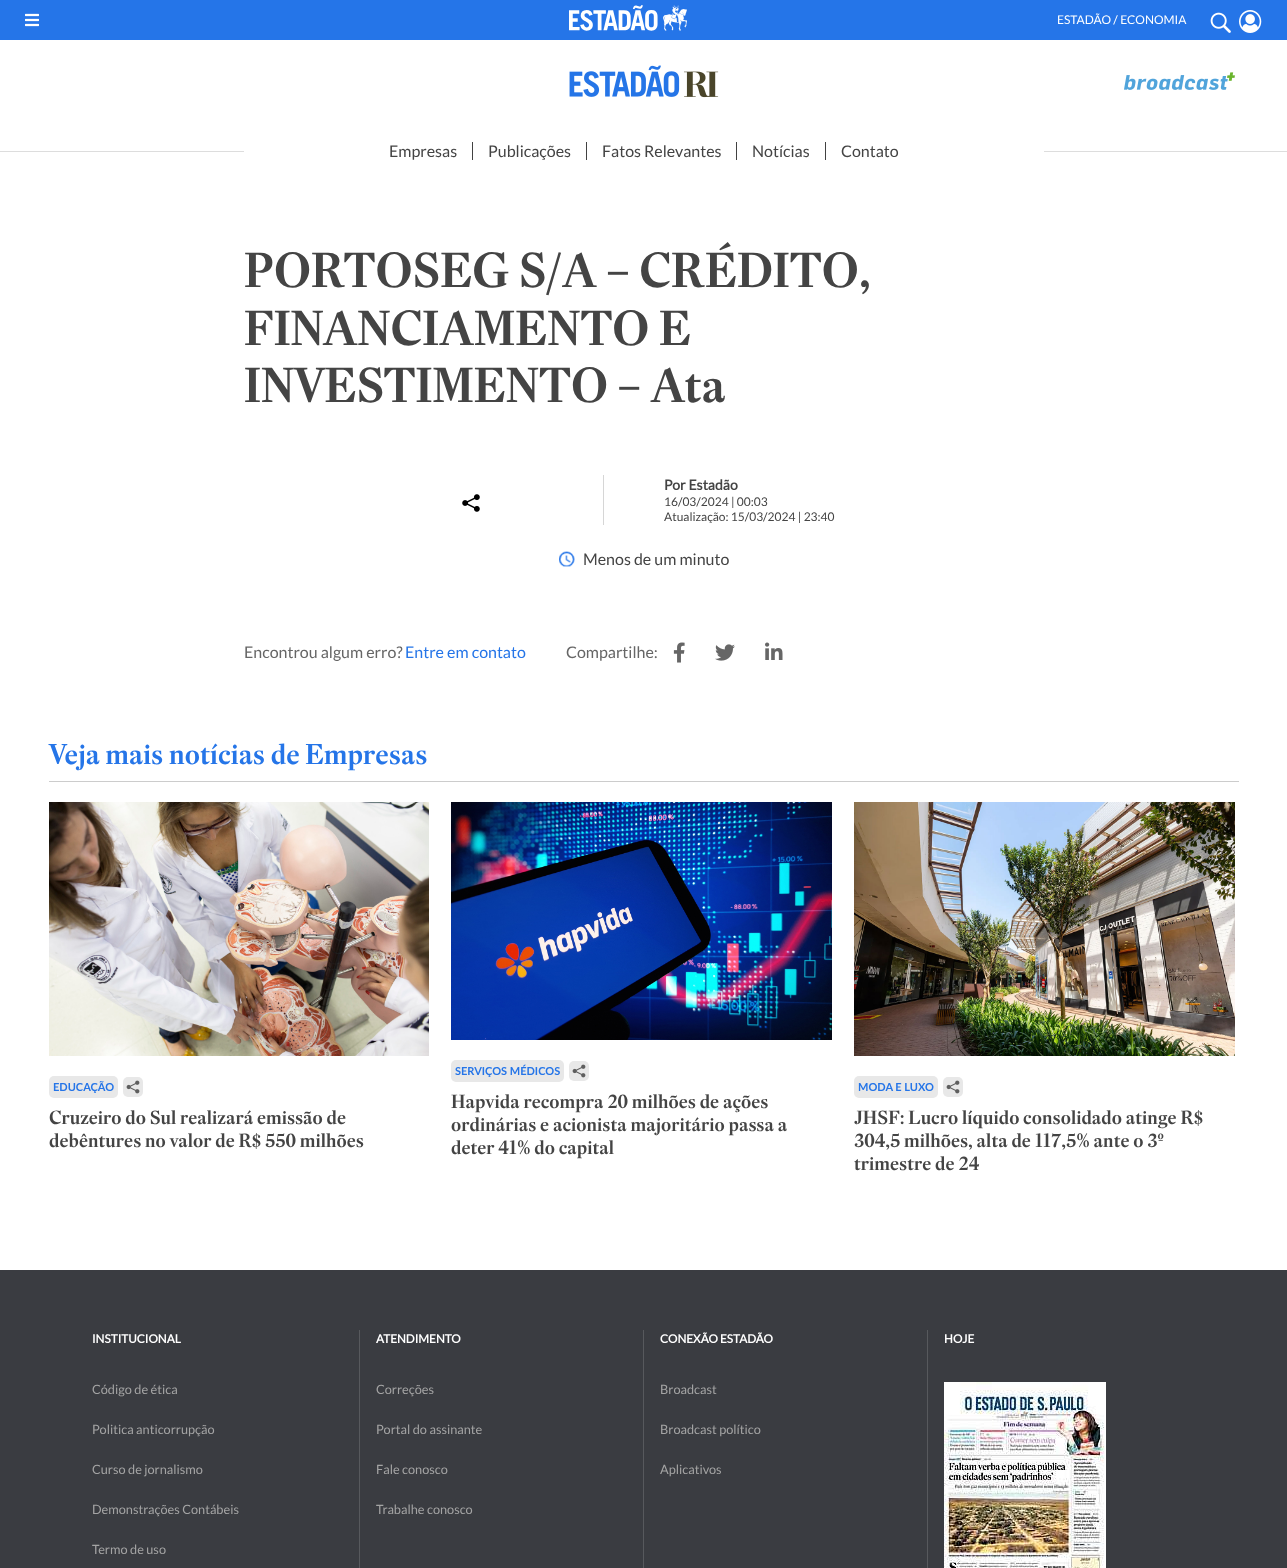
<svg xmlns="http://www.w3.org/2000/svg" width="1287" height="1568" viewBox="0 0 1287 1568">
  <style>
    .t1 { font: 12px Lato; fill: #fff; }
    .t2 { font: 16px Lato; fill: #444; }
    .t3 { font: 600 48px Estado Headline; fill: #444; }
    .t4 { font: bold 14px Lato; fill: #444; }
    .t5 { font: 12px Lato; fill: #444; }
    .t6 { font: 16px Lato; fill: #666; }
    .t7 { font: 16px Lato; fill: #2575e8; }
    .t8 { font: 600 28px Estado Headline; fill: #2575e8; }
    .t9 { font: bold 11px 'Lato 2'; fill: #2575e8; }
    .t10 { font: 600 18.75px Estado Headline; fill: #444; }
    .t11 { font: bold 11.75px Lato; fill: #fff; }
    .t12 { font: 12.75px Lato; fill: #a4a4a4; }
  </style>
  <rect width="100%" height="100%" fill="#fff"/>
  <rect x="0" y="0" width="1287" height="40" fill="#2575e8"/>
  <image x="25" y="13" width="14" height="14" href="images/1.png"/>
  <image x="569" y="5" width="118" height="26" href="images/2.png"/>
  <text x="1057" y="24" class="t1">ESTADÃO / ECONOMIA</text>
  <image x="1210" y="12" width="21" height="21" href="images/3.png"/>
  <image x="1239" y="10" width="23" height="23" href="images/4.png"/>
  <image x="569" y="65" width="150" height="33" href="images/5.png"/>
  <image x="1124" y="72" width="111" height="18" href="images/6.png"/>
  <rect x="0" y="151" width="1287" height="1" fill="#ddd"/>
  <rect x="244" y="151" width="800" height="1" fill="#fff"/>
  <rect x="472" y="142" width="1" height="18" fill="#424242"/>
  <text x="389" y="157" class="t2">Empresas</text>
  <rect x="586" y="142" width="1" height="18" fill="#424242"/>
  <text x="488" y="157" class="t2">Publicações</text>
  <rect x="736" y="142" width="1" height="18" fill="#424242"/>
  <text x="602" y="157" class="t2">Fatos Relevantes</text>
  <rect x="825" y="142" width="1" height="18" fill="#424242"/>
  <text x="752" y="157" class="t2">Notícias</text>
  <text x="841" y="157" class="t2">Contato</text>
  <text x="244" y="287" class="t3">PORTOSEG S/A – CRÉDITO,</text>
  <text x="244" y="345" class="t3">FINANCIAMENTO E</text>
  <text x="244" y="402" class="t3">INVESTIMENTO – Ata</text>
  <image x="462" y="494" width="18" height="18" href="images/7.png"/>
  <rect x="603" y="475" width="1" height="50" fill="#d6d6d6"/>
  <text x="664" y="490" class="t4">Por Estadão</text>
  <text x="664" y="506" class="t5">16/03/2024 | 00:03</text>
  <text x="664" y="521" class="t5">Atualização: 15/03/2024 | 23:40</text>
  <image x="559" y="551" width="16" height="16" href="images/8.png"/>
  <text x="583" y="565" class="t2">Menos de um minuto</text>
  <text x="244" y="658" class="t6">Encontrou algum erro?</text>
  <text x="405" y="658" class="t7">Entre em contato</text>
  <text x="566" y="658" class="t6">Compartilhe:</text>
  <image x="673" y="642" width="12" height="21" href="images/9.png"/>
  <image x="715" y="644" width="20" height="17" href="images/10.png"/>
  <image x="765" y="642" width="18" height="18" href="images/11.png"/>
  <rect x="49" y="781" width="1190" height="1" fill="#ccc"/>
  <text x="49" y="764" class="t8">Veja mais notícias de Empresas</text>
  <image x="49" y="802" width="380" height="254" href="images/12.png"/>
  <rect x="49" y="1076" width="69" height="22" rx="5" fill="#e8e8e8"/>
  <text x="53" y="1091" class="t9">EDUCAÇÃO</text>
  <rect x="123" y="1077" width="20" height="20" rx="5" fill="#e8e8e8"/>
  <image x="126" y="1080" width="14" height="14" href="images/13.png"/>
  <text x="49" y="1124" class="t10">Cruzeiro do Sul realizará emissão de</text>
  <text x="49" y="1147" class="t10">debêntures no valor de R$ 550 milhões</text>
  <image x="451" y="802" width="381" height="238" href="images/14.png"/>
  <rect x="451" y="1060" width="113" height="22" rx="5" fill="#e8e8e8"/>
  <text x="455" y="1075" class="t9">SERVIÇOS MÉDICOS</text>
  <rect x="569" y="1061" width="20" height="20" rx="5" fill="#e8e8e8"/>
  <image x="572" y="1064" width="14" height="14" href="images/13.png"/>
  <text x="451" y="1108" class="t10">Hapvida recompra 20 milhões de ações</text>
  <text x="451" y="1131" class="t10">ordinárias e acionista majoritário passa a</text>
  <text x="451" y="1154" class="t10">deter 41% do capital</text>
  <image x="854" y="802" width="381" height="254" href="images/15.png"/>
  <rect x="854" y="1076" width="84" height="22" rx="5" fill="#e8e8e8"/>
  <text x="858" y="1091" class="t9">MODA E LUXO</text>
  <rect x="943" y="1077" width="20" height="20" rx="5" fill="#e8e8e8"/>
  <image x="946" y="1080" width="14" height="14" href="images/13.png"/>
  <text x="854" y="1124" class="t10">JHSF: Lucro líquido consolidado atinge R$</text>
  <text x="854" y="1147" class="t10">304,5 milhões, alta de 117,5% ante o 3º</text>
  <text x="854" y="1170" class="t10">trimestre de 24</text>
  <rect x="0" y="1270" width="1287" height="298" fill="#3a3c41"/>
  <text x="92" y="1343" class="t11">INSTITUCIONAL</text>
  <text x="92" y="1394" class="t12">Código de ética</text>
  <text x="92" y="1434" class="t12">Politica anticorrupção</text>
  <text x="92" y="1474" class="t12">Curso de jornalismo</text>
  <text x="92" y="1514" class="t12">Demonstrações Contábeis</text>
  <text x="92" y="1554" class="t12">Termo de uso</text>
  <rect x="359" y="1330" width="1" height="238" fill="#57595d"/>
  <text x="376" y="1343" class="t11">ATENDIMENTO</text>
  <text x="376" y="1394" class="t12">Correções</text>
  <text x="376" y="1434" class="t12">Portal do assinante</text>
  <text x="376" y="1474" class="t12">Fale conosco</text>
  <text x="376" y="1514" class="t12">Trabalhe conosco</text>
  <rect x="643" y="1330" width="1" height="238" fill="#57595d"/>
  <text x="660" y="1343" class="t11">CONEXÃO ESTADÃO</text>
  <text x="660" y="1394" class="t12">Broadcast</text>
  <text x="660" y="1434" class="t12">Broadcast político</text>
  <text x="660" y="1474" class="t12">Aplicativos</text>
  <rect x="927" y="1330" width="1" height="238" fill="#57595d"/>
  <text x="944" y="1343" class="t11">HOJE</text>
  <image x="944" y="1382" width="162" height="186" href="images/16.png"/>
</svg>
